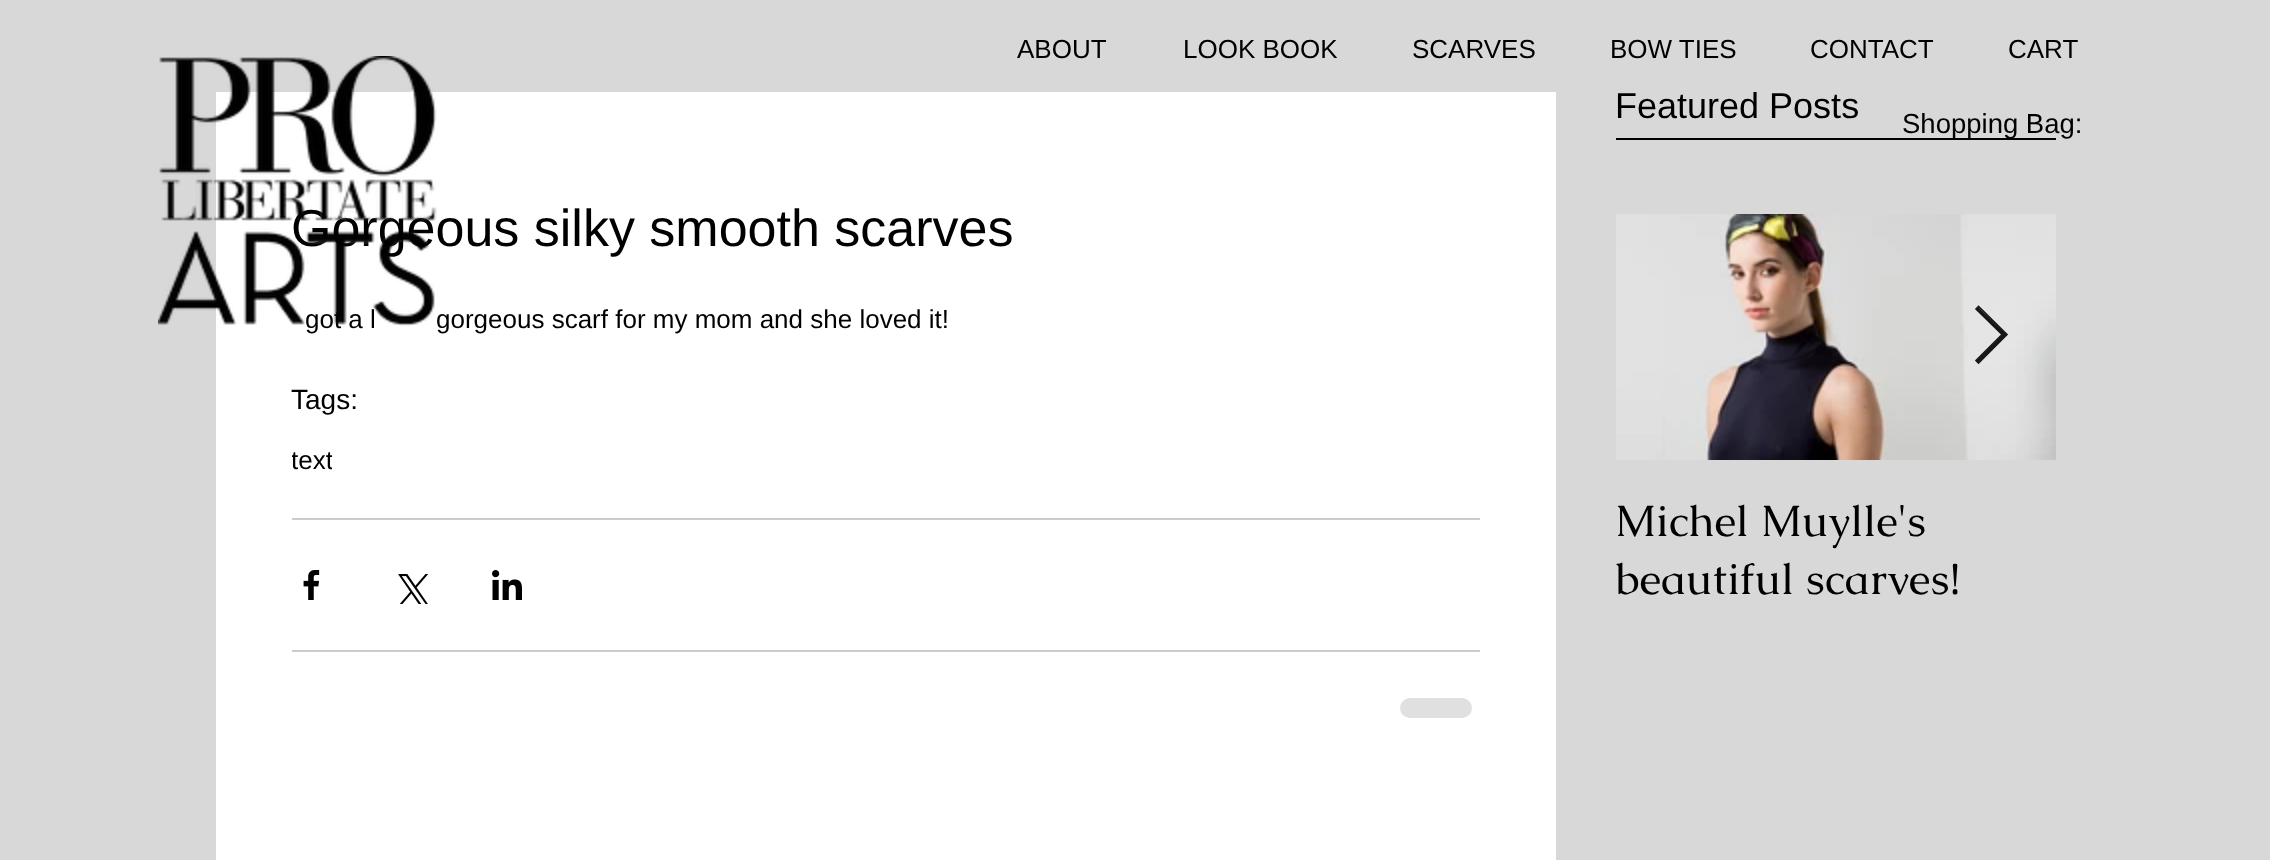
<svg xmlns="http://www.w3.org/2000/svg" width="2270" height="860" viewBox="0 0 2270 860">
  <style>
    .t1 { font: 26px Liberation Sans; fill: #000; }
    .t2 { font: 52px Liberation Sans; fill: #000; }
    .t3 { font: 28px Liberation Sans; fill: #000; }
    .t4 { font: 36px Liberation Sans; fill: #000; }
    .t5 { font: 44px Caudex; fill: #000; }
    .t6 { font: 27.5px Liberation Sans; fill: #000; }
  </style>
  <defs>
    <clipPath id="clip1"><rect x="292" y="446" width="40" height="32"/></clipPath>
  </defs>
  <rect width="100%" height="100%" fill="#d8d8d8"/>
  <text x="1017" y="58" class="t1">ABOUT</text>
  <text x="1183" y="58" class="t1">LOOK BOOK</text>
  <text x="1412" y="58" class="t1">SCARVES</text>
  <text x="1610" y="58" class="t1">BOW TIES</text>
  <text x="1810" y="58" class="t1">CONTACT</text>
  <text x="2008" y="58" class="t1">CART</text>
  <rect x="216" y="92" width="1340" height="768" fill="#fff"/>
  <text x="291" y="246" class="t2">Gorgeous silky smooth scarves</text>
  <text x="305" y="328" class="t1">got a l</text>
  <text x="436" y="328" class="t1">gorgeous scarf for my mom and she loved it!</text>
  <image x="158" y="56" width="279" height="270" href="images/1.png"/>
  <text x="291" y="409" class="t3">Tags:</text>
  <g clip-path="url(#clip1)">
    <text x="291" y="469" class="t1">text</text>
  </g>
  <rect x="292" y="518" width="1188" height="2" fill="#ccc"/>
  <image x="303" y="570" width="17" height="30" href="images/2.png"/>
  <image x="398" y="574" width="30" height="30" href="images/3.png"/>
  <image x="492" y="570" width="30" height="30" href="images/4.png"/>
  <rect x="292" y="650" width="1188" height="2" fill="#ccc"/>
  <rect x="1400" y="698" width="72" height="20" rx="10" fill="#e0e0e0"/>
  <text x="1615" y="118" class="t4">Featured Posts</text>
  <rect x="1616" y="138" width="440" height="2" fill="#000"/>
  <image x="1665" y="214" width="391" height="246" href="images/6.png"/>
  <path d="M1976 309L1978 307L2007 335L1978 363L1976 361L2002 335Z" fill="#171717"/>
  <path d="M1976 309L1978.5 306.5L2007 334.5L1978.5 363L1976 360.5L2002 334.5Z" fill="none" stroke="#171717" stroke-width="1.6"/>
  <image x="1616" y="214" width="49" height="246" href="images/5.png"/>
  <text x="1615" y="536" class="t5">Michel Muylle's</text>
  <text x="1615" y="594" class="t5">beautiful scarves!</text>
  <text x="1902" y="133" class="t6">Shopping Bag:</text>
</svg>
